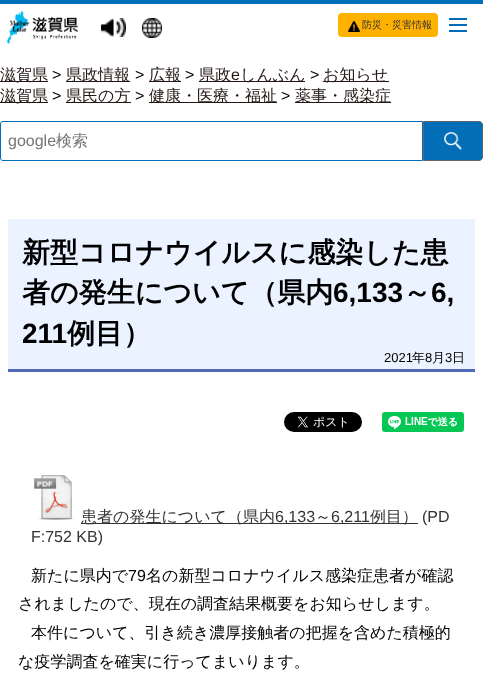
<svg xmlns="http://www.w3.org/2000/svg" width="483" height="683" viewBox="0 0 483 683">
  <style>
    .t1 { font: 500 10px WenQuanYi Zen Hei; fill: #333; }
    .t2 { font: 500 16px WenQuanYi Zen Hei; fill: #231815; }
    .t3 { font: 16px Liberation Sans; fill: #000; }
    .t4 { font: 16px Liberation Sans; fill: #231815; }
    .t5 { font: 16px Liberation Sans; fill: #757575; }
    .t6 { font: 500 16px WenQuanYi Zen Hei; fill: #757575; }
    .t7 { font: bold 28px WenQuanYi Zen Hei; fill: #000; }
    .t8 { font: bold 28px Liberation Sans; fill: #000; }
    .t9 { font: 13px Liberation Sans; fill: #000; }
    .t10 { font: 500 13px WenQuanYi Zen Hei; fill: #000; }
    .t11 { font: 500 16px WenQuanYi Zen Hei; fill: #333; }
    .t12 { font: 16px Liberation Sans; fill: #333; }
    .t13 { font: 500 16px WenQuanYi Zen Hei; fill: #000; }
  </style>
  <rect width="100%" height="100%" fill="#fff"/>
  <rect x="0" y="0" width="483" height="4" fill="#036eb8"/>
  <image x="6" y="10" width="72" height="35" href="images/1.png"/>
  <image x="101" y="18" width="25" height="19" href="images/2.png"/>
  <image x="142" y="18" width="20" height="20" href="images/3.png"/>
  <rect x="338" y="13" width="100" height="24" rx="4" fill="#ffb100"/>
  <image x="348" y="21" width="12" height="11" href="images/4.png"/>
  <text x="362" y="28" class="t1">防災・災害情報</text>
  <rect x="449" y="18" width="18" height="2" fill="#036eb8"/>
  <rect x="449" y="24" width="18" height="2" fill="#036eb8"/>
  <rect x="449" y="30" width="18" height="2" fill="#036eb8"/>
  <rect x="0" y="81" width="48" height="1" fill="#231815"/>
  <text x="0" y="80" class="t2">滋賀県</text>
  <text x="52" y="80" class="t3">&gt;</text>
  <rect x="66" y="81" width="64" height="1" fill="#231815"/>
  <text x="66" y="80" class="t2">県政情報</text>
  <text x="135" y="80" class="t3">&gt;</text>
  <rect x="149" y="81" width="32" height="1" fill="#231815"/>
  <text x="149" y="80" class="t2">広報</text>
  <text x="185" y="80" class="t3">&gt;</text>
  <rect x="199" y="81" width="106" height="1" fill="#231815"/>
  <text x="199" y="80" class="t2">県政</text>
  <text x="231" y="80" class="t4">e</text>
  <text x="240" y="80" class="t2">しんぶん</text>
  <text x="310" y="80" class="t3">&gt;</text>
  <rect x="323" y="81" width="66" height="1" fill="#231815"/>
  <text x="323" y="80" class="t2">お知らせ</text>
  <rect x="0" y="102" width="48" height="1" fill="#231815"/>
  <text x="0" y="101" class="t2">滋賀県</text>
  <text x="52" y="101" class="t3">&gt;</text>
  <rect x="66" y="102" width="65" height="1" fill="#231815"/>
  <text x="66" y="101" class="t2">県民の方</text>
  <text x="135" y="101" class="t3">&gt;</text>
  <rect x="149" y="102" width="128" height="1" fill="#231815"/>
  <text x="149" y="101" class="t2">健康・医療・福祉</text>
  <text x="281" y="101" class="t3">&gt;</text>
  <rect x="295" y="102" width="96" height="1" fill="#231815"/>
  <text x="295" y="101" class="t2">薬事・感染症</text>
  <path d="M3 121.5H422.5V160.5H3C1.5 160.5 .5 159.5 .5 158V124C.5 122.5 1.5 121.5 3 121.5Z" fill="none" stroke="#036eb8"/>
  <text x="8" y="146" class="t5">google</text>
  <text x="56" y="146" class="t6">検索</text>
  <path d="M423.5 121.5H479C481 121.5 482.5 123 482.5 125V157C482.5 159 481 160.5 479 160.5H423.5Z" fill="#036eb8" stroke="#666"/>
  <image x="444" y="132" width="18" height="18" href="images/5.png"/>
  <rect x="8" y="219" width="467" height="150" fill="#eaf3ff"/>
  <rect x="8" y="369" width="467" height="3" fill="#516ab6"/>
  <text x="22" y="262" class="t7">新型コロナウイルスに感染した患</text>
  <text x="22" y="302" class="t7">者の発生について（県内</text>
  <text x="333" y="302" class="t8">6,133</text>
  <text x="403" y="302" class="t7">～</text>
  <text x="431" y="302" class="t8">6,</text>
  <text x="22" y="343" class="t8">211</text>
  <text x="67" y="343" class="t7">例目）</text>
  <text x="384" y="362" class="t9">2021</text>
  <text x="412" y="362" class="t10">年</text>
  <text x="425" y="362" class="t9">8</text>
  <text x="432" y="362" class="t10">月</text>
  <text x="445" y="362" class="t9">3</text>
  <text x="452" y="362" class="t10">日</text>
  <image x="284" y="412" width="78" height="20" href="images/6.png"/>
  <image x="382" y="412" width="82" height="20" href="images/7.png"/>
  <image x="34" y="475" width="40" height="45" href="images/8.png"/>
  <rect x="81" y="523" width="337" height="1" fill="#333"/>
  <text x="81" y="522" class="t11">患者の発生について（県内</text>
  <text x="275" y="522" class="t12">6,133</text>
  <text x="315" y="522" class="t11">～</text>
  <text x="331" y="522" class="t12">6,211</text>
  <text x="370" y="522" class="t11">例目）</text>
  <text x="422" y="522" class="t12">(PD</text>
  <text x="31" y="542" class="t12">F:752 KB)</text>
  <text x="31" y="581" class="t13">新たに県内で</text>
  <text x="128" y="581" class="t3">79</text>
  <text x="146" y="581" class="t13">名の新型コロナウイルス感染症患者が確認</text>
  <text x="18" y="609" class="t13">されましたので、現在の調査結果概要をお知らせします。</text>
  <text x="31" y="638" class="t13">本件について、引き続き濃厚接触者の把握を含めた積極的</text>
  <text x="18" y="667" class="t13">な疫学調査を確実に行ってまいります。</text>
</svg>
